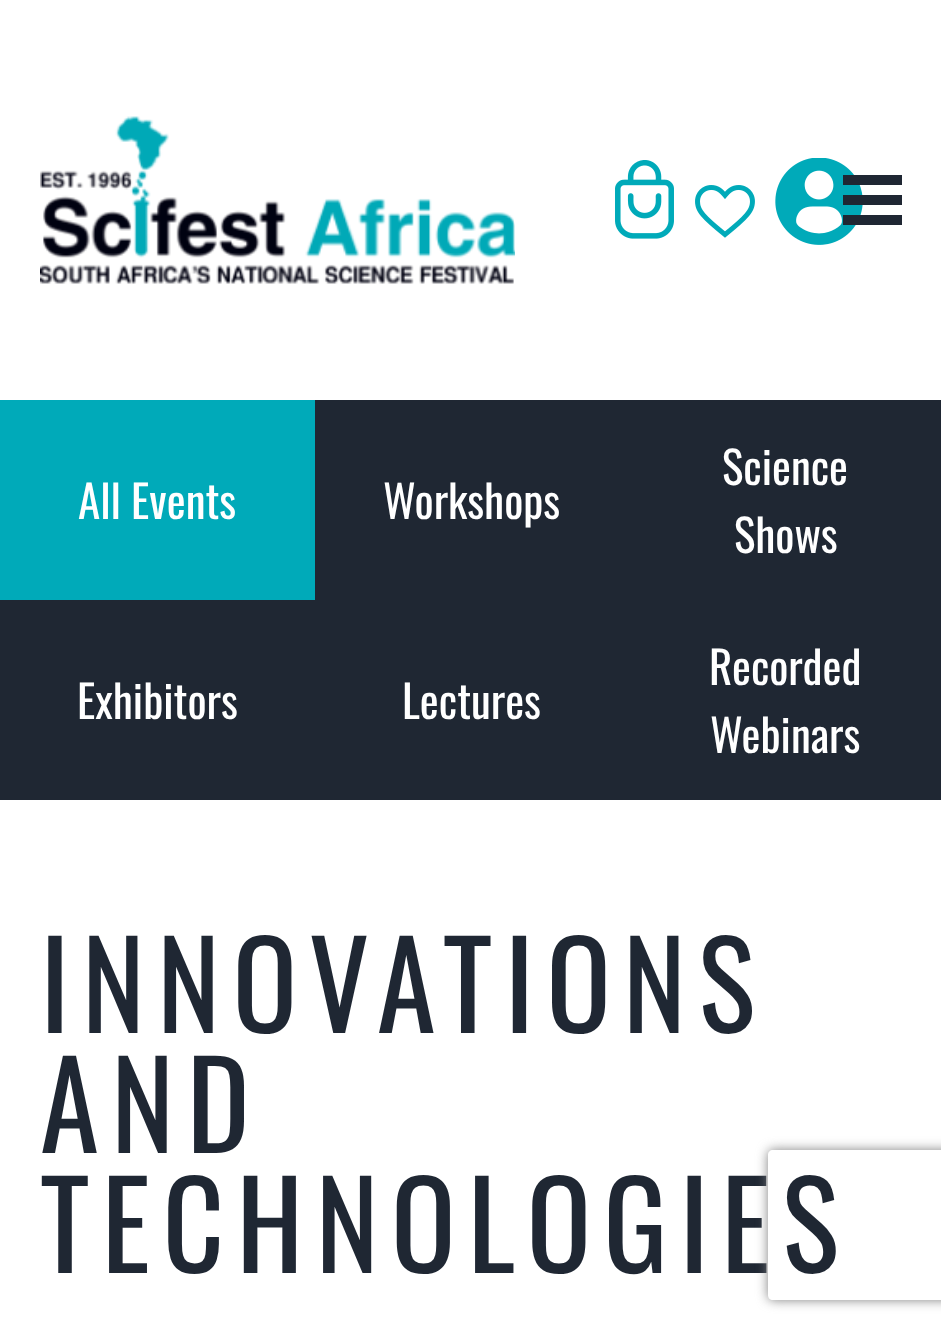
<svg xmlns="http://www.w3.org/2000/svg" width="941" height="1334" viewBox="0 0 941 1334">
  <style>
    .t1 { font: 45px Oswald; fill: #fff; }
    .t2 { font: 120px Oswald; letter-spacing: 12px; fill: #1f2733; }
  </style>
  <defs>
    <clipPath id="clip1"><rect x="843" y="170" width="60" height="60"/></clipPath>
    <clipPath id="clip2"><path d="M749 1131H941V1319H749ZM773 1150H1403C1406 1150 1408 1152 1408 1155V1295C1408 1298 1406 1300 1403 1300H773C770 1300 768 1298 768 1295V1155C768 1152 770 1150 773 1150Z" clip-rule="evenodd"/></clipPath>
  </defs>
  <rect width="100%" height="100%" fill="#fff"/>
  <image x="40" y="116" width="475" height="168" href="images/1.png"/>
  <image x="615" y="160" width="59" height="79" href="images/2.png"/>
  <image x="695" y="185" width="60" height="53" href="images/3.png"/>
  <image x="775" y="158" width="88" height="87" href="images/4.png"/>
  <g clip-path="url(#clip1)">
    <path d="M902 185H842V175H902ZM902 195H842V205H902ZM902 215H842V225H902Z" fill="#1f2733"/>
  </g>
  <rect x="0" y="400" width="941" height="400" fill="#1f2733"/>
  <rect x="0" y="400" width="315" height="200" fill="#00aab9"/>
  <text x="78" y="519" class="t1">All Events</text>
  <text x="383" y="519" class="t1">Workshops</text>
  <text x="722" y="485" class="t1">Science</text>
  <text x="734" y="553" class="t1">Shows</text>
  <text x="77" y="719" class="t1">Exhibitors</text>
  <text x="402" y="719" class="t1">Lectures</text>
  <text x="709" y="685" class="t1">Recorded</text>
  <text x="710" y="753" class="t1">Webinars</text>
  <text x="40" y="1033" class="t2">INNOVATIONS</text>
  <text x="40" y="1153" class="t2">AND</text>
  <text x="40" y="1273" class="t2">TECHNOLOGIES</text>
  <g clip-path="url(#clip2)">
    <rect x="768" y="1150" width="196" height="150" rx="5" fill="#808080" filter="blur(6px)"/>
  </g>
</svg>
